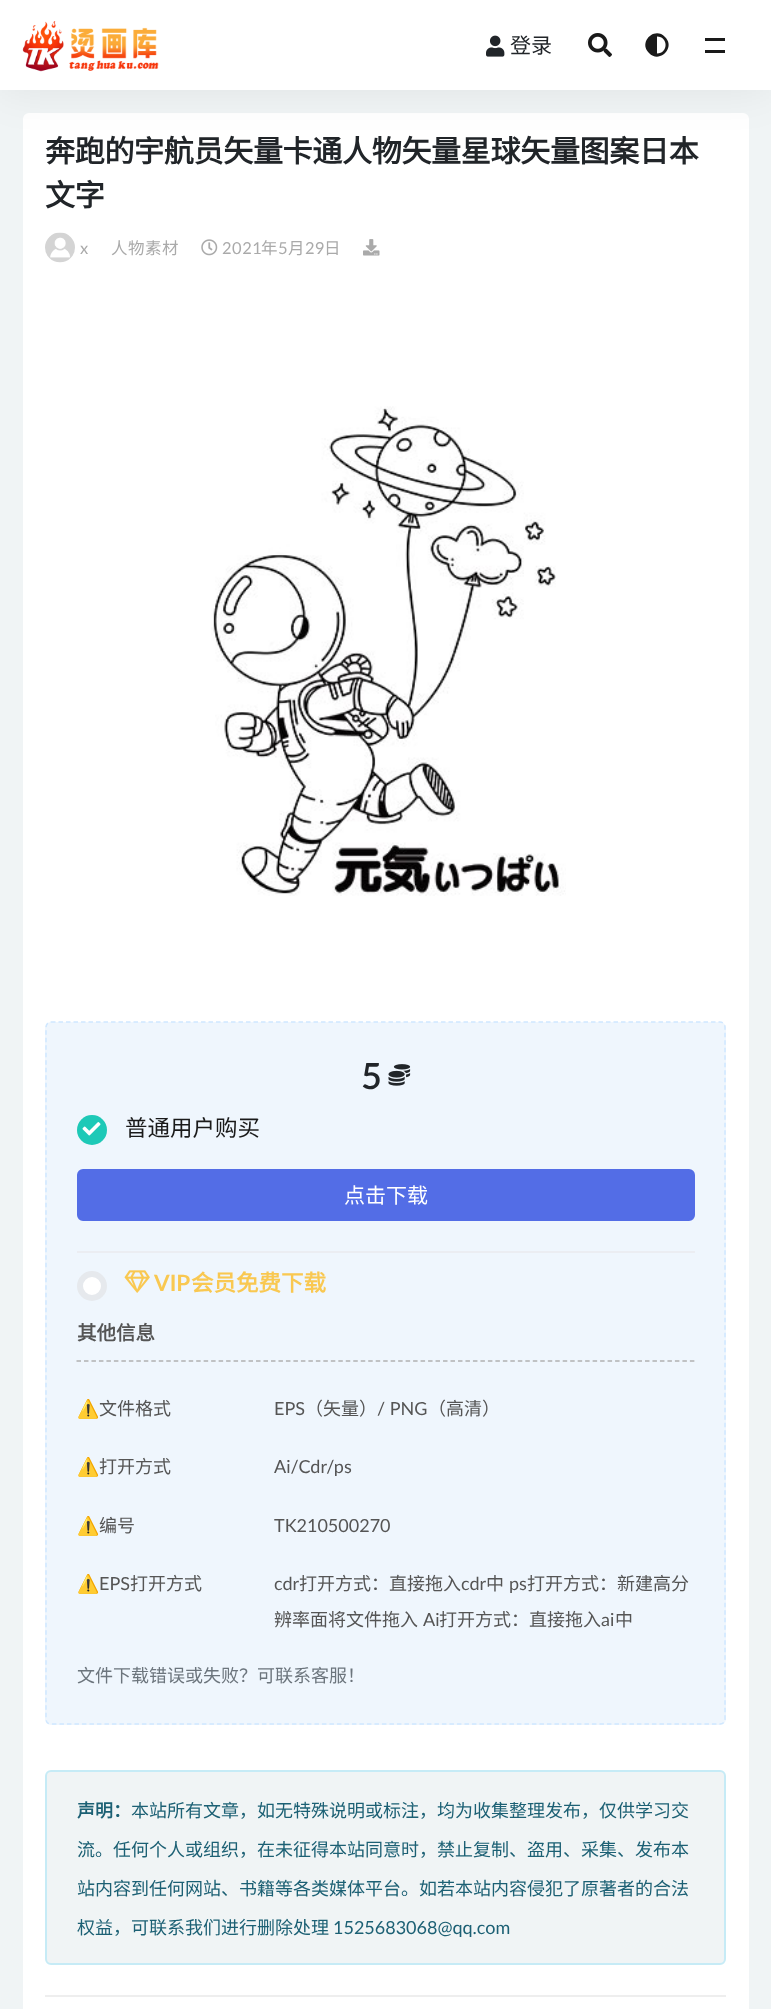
<svg xmlns="http://www.w3.org/2000/svg" width="771" height="2009" viewBox="0 0 771 2009">
  <style>
    .t1 { font: 21px Noto Sans CJK SC; fill: #212529; }
    .t2 { font: bold 30px Noto Sans CJK SC; letter-spacing: -0.3px; fill: #212529; }
    .t3 { font: 16.5px Lato; letter-spacing: 0.5px; fill: #aaa; }
    .t4 { font: 16.5px Noto Sans CJK SC; letter-spacing: 0.5px; fill: #aaa; }
    .t5 { font: 600 36px Lato; fill: #212529; }
    .t6 { font: 22.5px Noto Sans CJK SC; fill: #1a1a1a; }
    .t7 { font: 21px Noto Sans CJK SC; fill: #fff; }
    .t8 { font: bold 22.5px Lato; fill: #f9c851; }
    .t9 { font: bold 22.5px Noto Sans CJK SC; fill: #f9c851; }
    .t10 { font: bold 19.5px Noto Sans CJK SC; fill: #555; }
    .t11 { font: 18px Noto Color Emoji; fill: #555; }
    .t12 { font: 18px Noto Sans CJK SC; fill: #555; }
    .t13 { font: 18px Lato; fill: #555; }
    .t14 { font: 18px Noto Sans CJK SC; fill: #6c757d; }
    .t15 { font: bold 18px Noto Sans CJK SC; fill: #1c6074; }
    .t16 { font: 18px Noto Sans CJK SC; fill: #1c6074; }
    .t17 { font: 18px Lato; fill: #1c6074; }
  </style>
  <defs>
    <clipPath id="clip1"><rect x="77" y="1383" width="618" height="51"/></clipPath>
    <clipPath id="clip2"><rect x="77" y="1442" width="618" height="51"/></clipPath>
    <clipPath id="clip3"><rect x="77" y="1500" width="618" height="51"/></clipPath>
    <clipPath id="clip4"><rect x="77" y="1559" width="618" height="87"/></clipPath>
  </defs>
  <rect width="100%" height="100%" fill="#f0f4f5"/>
  <rect x="23" y="113" width="726" height="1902" rx="6" fill="#fff"/>
  <rect x="0" y="0" width="771" height="90" fill="#00000012" filter="blur(22.5px)"/>
  <rect x="0" y="0" width="771" height="90" fill="#fff"/>
  <image x="22" y="21" width="137" height="51" href="images/1.png"/>
  <image x="486" y="35" width="19" height="22" href="images/2.png"/>
  <text x="510" y="53" class="t1">登录</text>
  <image x="588" y="33" width="24" height="24" href="images/3.png"/>
  <path d="M649 53C638 42.5 654.5 26 665 37C676 47.5 659.5 64 649 53ZM657 53.5C668.5 53.5 668.5 36.5 657 36.5Z" fill="#1a1a1a"/>
  <rect x="705" y="38" width="20" height="3" fill="#1a1a1a"/>
  <rect x="705" y="50" width="20" height="3" fill="#1a1a1a"/>
  <text x="45" y="162" class="t2">奔跑的宇航员矢量卡通人物矢量星球矢量图案日本</text>
  <text x="45" y="206" class="t2">文字</text>
  <image x="45" y="232" width="30" height="31" href="images/4.png"/>
  <text x="80" y="254" class="t3">x</text>
  <text x="111" y="254" class="t4">人物素材</text>
  <image x="201" y="239" width="17" height="17" href="images/5.png"/>
  <text x="222" y="254" class="t3">2021</text>
  <text x="261" y="254" class="t4">年</text>
  <text x="278" y="254" class="t3">5</text>
  <text x="288" y="254" class="t4">月</text>
  <text x="305" y="254" class="t3">29</text>
  <text x="324" y="254" class="t4">日</text>
  <image x="363" y="239" width="17" height="17" href="images/6.png"/>
  <image x="211" y="406" width="355" height="490" href="images/7.png"/>
  <rect x="45" y="1022" width="681" height="703" rx="6" fill="#eff6fd"/>
  <path d="M51 1022H720C723 1022 725 1024.5 725 1027.5V1719C725 1722 723 1724 720 1724H51C48 1724 46 1722 46 1719V1027.5C46 1024.5 48 1022 51 1022Z" fill="none" stroke="#cfe7ff" stroke-width="1.5" stroke-dasharray="4.5 3"/>
  <text x="361" y="1089" class="t5">5</text>
  <image x="388" y="1064" width="23" height="22" href="images/8.png"/>
  <circle cx="92" cy="1130" r="12" fill="none" stroke="#e6e9ed" stroke-width="6"/>
  <circle cx="92" cy="1130" r="15" fill="#1dc9b7"/>
  <image x="82" y="1122" width="19" height="14" href="images/9.png"/>
  <text x="125" y="1136" class="t6">普通用户购买</text>
  <rect x="78" y="1170" width="616" height="50" rx="5" fill="#536de6" stroke="#536de6" stroke-width="2"/>
  <text x="344" y="1203" class="t7">点击下载</text>
  <rect x="77" y="1251" width="618" height="2" fill="#ebedf2"/>
  <circle cx="92" cy="1286" r="12" fill="#fff" stroke="#e6e9ed" stroke-width="6"/>
  <image x="124" y="1270" width="26" height="23" href="images/10.png"/>
  <text x="154" y="1291" class="t8">VIP</text>
  <text x="191" y="1291" class="t9">会员免费下载</text>
  <path d="M76.5 1361H694.5" fill="none" stroke="#b1b1b1" stroke-width="1.5" stroke-dasharray="4.5 2.98"/>
  <text x="77" y="1340" class="t10">其他信息</text>
  <g clip-path="url(#clip1)">
    <text x="77" y="1415" class="t11">⚠️</text>
  </g>
  <text x="99" y="1415" class="t12">文件格式</text>
  <text x="274" y="1415" class="t13">EPS</text>
  <text x="305" y="1415" class="t12">（矢量）</text>
  <text x="377" y="1415" class="t13">/ PNG</text>
  <text x="428" y="1415" class="t12">（高清）</text>
  <g clip-path="url(#clip2)">
    <text x="77" y="1473" class="t11">⚠️</text>
  </g>
  <text x="99" y="1473" class="t12">打开方式</text>
  <text x="274" y="1473" class="t13">Ai/Cdr/ps</text>
  <g clip-path="url(#clip3)">
    <text x="77" y="1532" class="t11">⚠️</text>
  </g>
  <text x="99" y="1532" class="t12">编号</text>
  <text x="274" y="1532" class="t13">TK210500270</text>
  <g clip-path="url(#clip4)">
    <text x="77" y="1590" class="t11">⚠️</text>
  </g>
  <text x="99" y="1590" class="t13">EPS</text>
  <text x="130" y="1590" class="t12">打开方式</text>
  <text x="274" y="1590" class="t13">cdr</text>
  <text x="299" y="1590" class="t12">打开方式：直接拖入</text>
  <text x="461" y="1590" class="t13">cdr</text>
  <text x="486" y="1590" class="t12">中</text>
  <text x="509" y="1590" class="t13">ps</text>
  <text x="527" y="1590" class="t12">打开方式：新建高分</text>
  <text x="274" y="1626" class="t12">辨率面将文件拖入</text>
  <text x="423" y="1626" class="t13">Ai</text>
  <text x="439" y="1626" class="t12">打开方式：直接拖入</text>
  <text x="601" y="1626" class="t13">ai</text>
  <text x="615" y="1626" class="t12">中</text>
  <text x="77" y="1682" class="t14">文件下载错误或失败？可联系客服！</text>
  <rect x="46" y="1771" width="679" height="193" rx="5" fill="#f0f4f5" stroke="#c6ebf6" stroke-width="2"/>
  <text x="77" y="1817" class="t15">声明：</text>
  <text x="131" y="1817" class="t16">本站所有文章，如无特殊说明或标注，均为收集整理发布，仅供学习交</text>
  <text x="77" y="1856" class="t16">流。任何个人或组织，在未征得本站同意时，禁止复制、盗用、采集、发布本</text>
  <text x="77" y="1895" class="t16">站内容到任何网站、书籍等各类媒体平台。如若本站内容侵犯了原著者的合法</text>
  <text x="77" y="1934" class="t16">权益，可联系我们进行删除处理</text>
  <text x="333" y="1934" class="t17">1525683068@qq.com</text>
  <rect x="45" y="1995" width="681" height="2" fill="#eee"/>
</svg>
